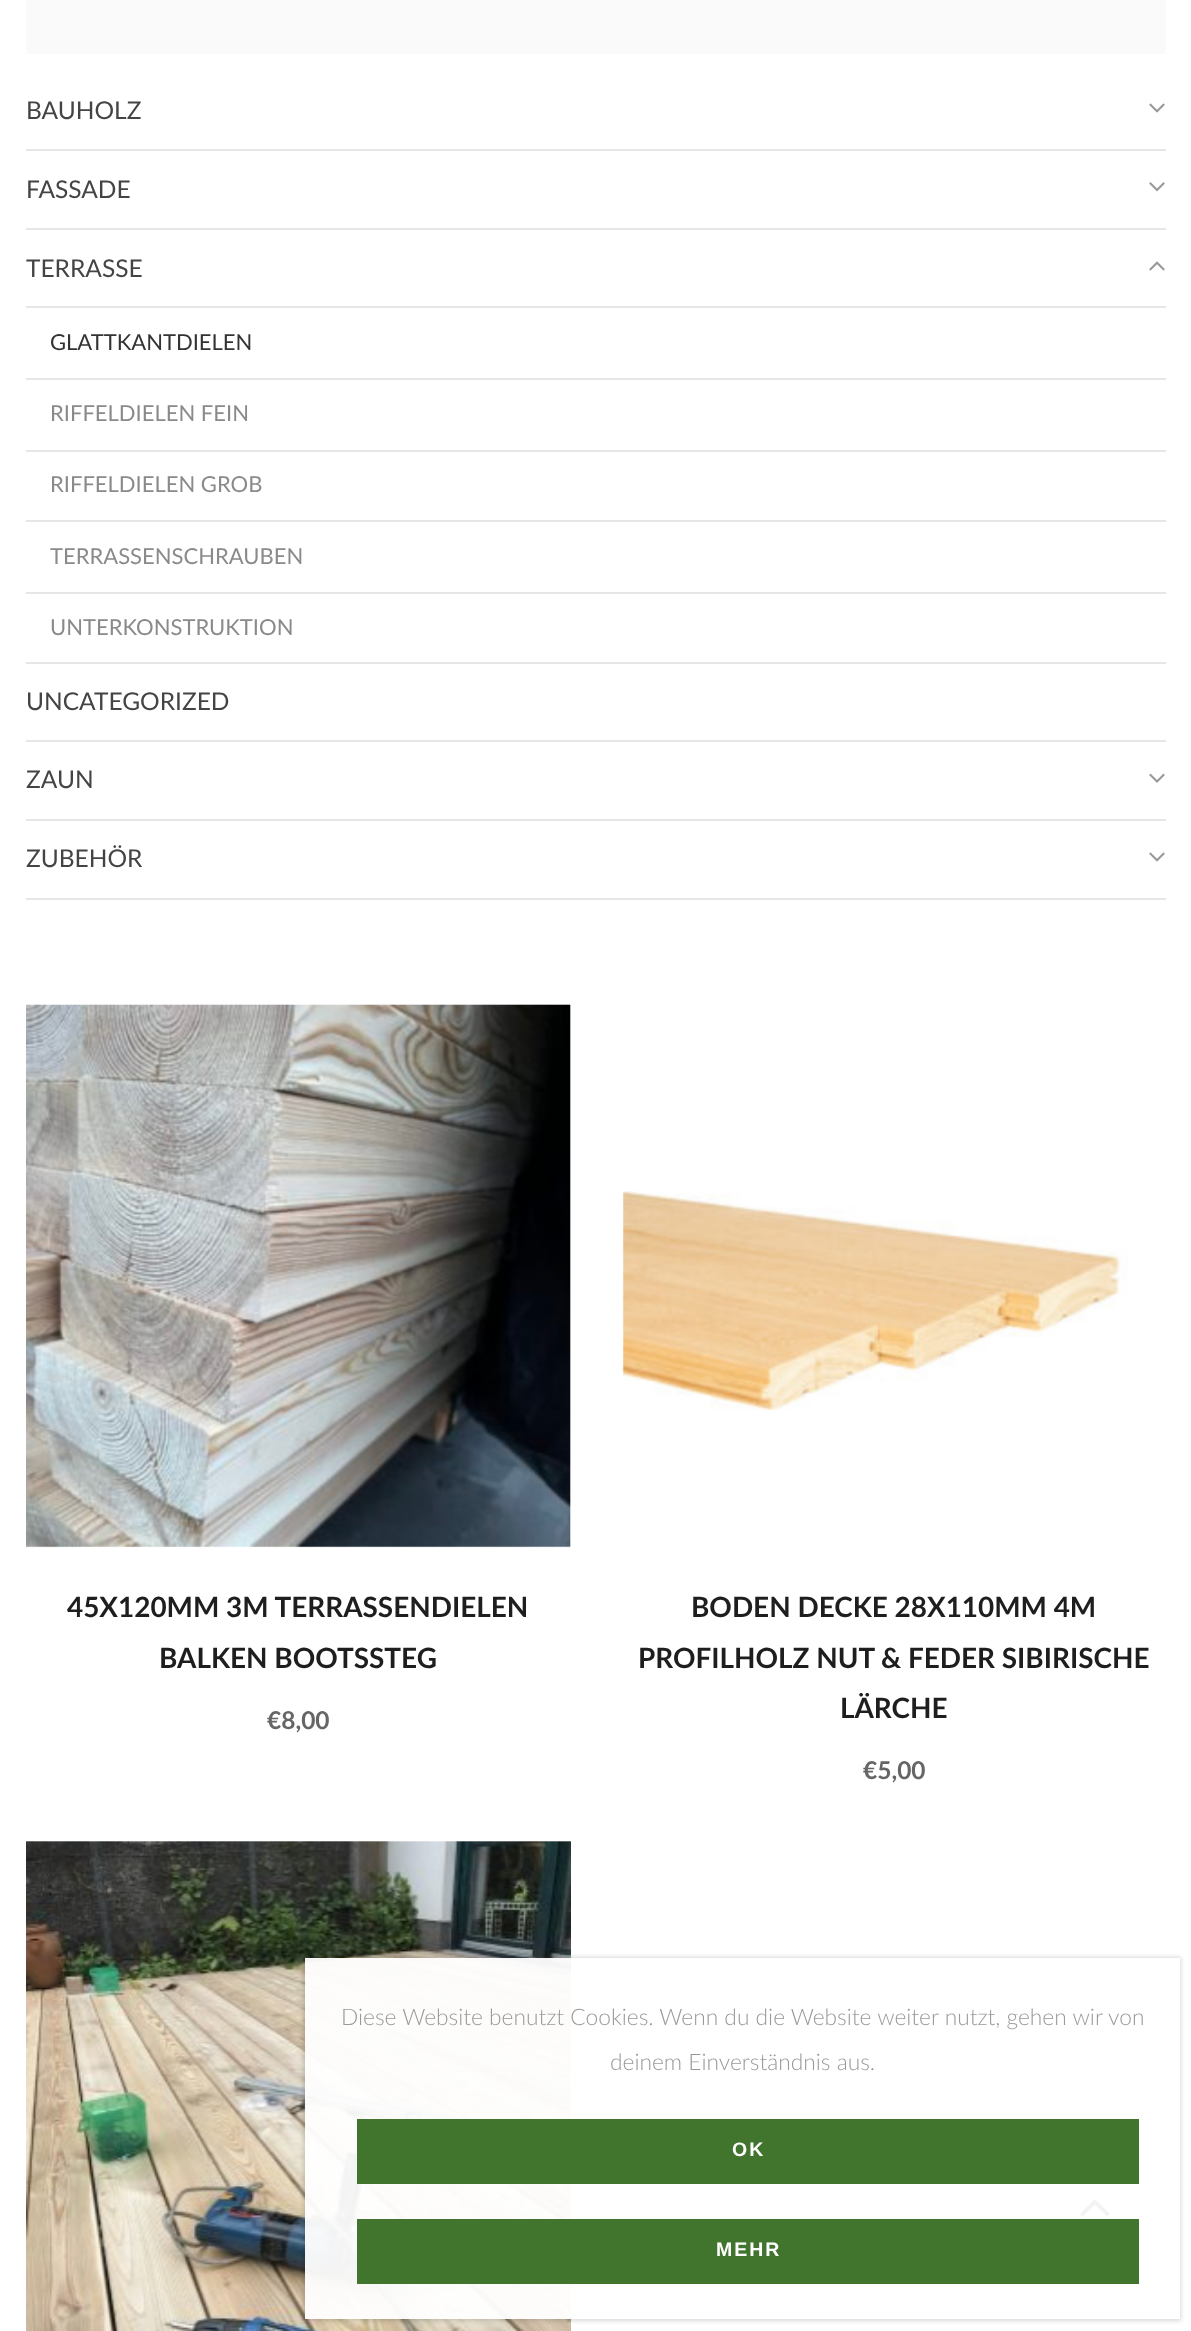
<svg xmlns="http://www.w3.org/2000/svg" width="1191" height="2331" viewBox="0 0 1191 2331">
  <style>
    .t1 { font: 24.5px Lato; fill: #444; }
    .t2 { font: 22px Lato; fill: #333; }
    .t3 { font: 22px Lato; fill: #8a8a8a; }
    .t4 { font: bold 27.9px Lato; fill: #1e1e1e; }
    .t5 { font: bold 24.5px Lato; fill: #666667; }
    .t6 { font: 300 22.75px Lato; fill: #999; }
    .t7 { font: bold 19.5px Liberation Sans; letter-spacing: 2px; fill: #fff; }
  </style>
  <defs>
    <clipPath id="clip1"><path d="M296 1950H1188V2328H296ZM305 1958H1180V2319H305Z" clip-rule="evenodd"/></clipPath>
  </defs>
  <rect width="100%" height="100%" fill="#fff"/>
  <rect x="26" y="0" width="1140" height="54" fill="#fafafa"/>
  <rect x="26" y="149" width="1140" height="2" fill="#e6e6e6"/>
  <text x="26" y="119" class="t1">BAUHOLZ</text>
  <image x="1149" y="103" width="16" height="10" href="images/1.png"/>
  <rect x="26" y="228" width="1140" height="2" fill="#e6e6e6"/>
  <text x="26" y="198" class="t1">FASSADE</text>
  <image x="1149" y="182" width="16" height="10" href="images/2.png"/>
  <rect x="26" y="306" width="1140" height="2" fill="#e6e6e6"/>
  <text x="26" y="277" class="t1">TERRASSE</text>
  <image x="1149" y="261" width="16" height="10" href="images/3.png"/>
  <rect x="26" y="662" width="1140" height="2" fill="#e6e6e6"/>
  <rect x="26" y="378" width="1140" height="2" fill="#e6e6e6"/>
  <text x="50" y="350" class="t2">GLATTKANTDIELEN</text>
  <rect x="26" y="450" width="1140" height="2" fill="#e6e6e6"/>
  <text x="50" y="421" class="t3">RIFFELDIELEN FEIN</text>
  <rect x="26" y="520" width="1140" height="2" fill="#e6e6e6"/>
  <text x="50" y="492" class="t3">RIFFELDIELEN GROB</text>
  <rect x="26" y="592" width="1140" height="2" fill="#e6e6e6"/>
  <text x="50" y="564" class="t3">TERRASSENSCHRAUBEN</text>
  <text x="50" y="635" class="t3">UNTERKONSTRUKTION</text>
  <rect x="26" y="740" width="1140" height="2" fill="#e6e6e6"/>
  <text x="26" y="710" class="t1">UNCATEGORIZED</text>
  <rect x="26" y="819" width="1140" height="2" fill="#e6e6e6"/>
  <text x="26" y="788" class="t1">ZAUN</text>
  <image x="1149" y="773" width="16" height="10" href="images/4.png"/>
  <rect x="26" y="898" width="1140" height="2" fill="#e6e6e6"/>
  <text x="26" y="867" class="t1">ZUBEHÖR</text>
  <image x="1149" y="852" width="16" height="10" href="images/1.png"/>
  <image x="26" y="1004" width="545" height="544" href="images/5.png"/>
  <text x="67" y="1617" class="t4">45X120MM 3M TERRASSENDIELEN</text>
  <text x="159" y="1668" class="t4">BALKEN BOOTSSTEG</text>
  <text x="267" y="1729" class="t5">€8,00</text>
  <image x="622" y="1191" width="507" height="220" href="images/6.png"/>
  <text x="691" y="1617" class="t4">BODEN DECKE 28X110MM 4M</text>
  <text x="638" y="1668" class="t4">PROFILHOLZ NUT &amp; FEDER SIBIRISCHE</text>
  <text x="840" y="1718" class="t4">LÄRCHE</text>
  <text x="863" y="1779" class="t5">€5,00</text>
  <image x="26" y="1841" width="545" height="490" href="images/7.png"/>
  <rect x="1052" y="2184" width="87" height="35" fill="#f2f2f2"/>
  <image x="1080" y="2199" width="30" height="18" href="images/8.png"/>
  <g clip-path="url(#clip1)">
    <rect x="303" y="1957" width="878" height="364" fill="#00000026" filter="blur(2px)"/>
  </g>
  <rect x="305" y="1958" width="875" height="361" fill="#fffffff2"/>
  <text x="341" y="2025" class="t6">Diese Website benutzt Cookies. Wenn du die Website weiter nutzt, gehen wir von</text>
  <text x="610" y="2070" class="t6">deinem Einverständnis aus.</text>
  <rect x="357" y="2119" width="782" height="65" fill="#41742d"/>
  <text x="732" y="2156" class="t7">OK</text>
  <rect x="357" y="2219" width="782" height="65" fill="#41742d"/>
  <text x="716" y="2256" class="t7">MEHR</text>
</svg>
